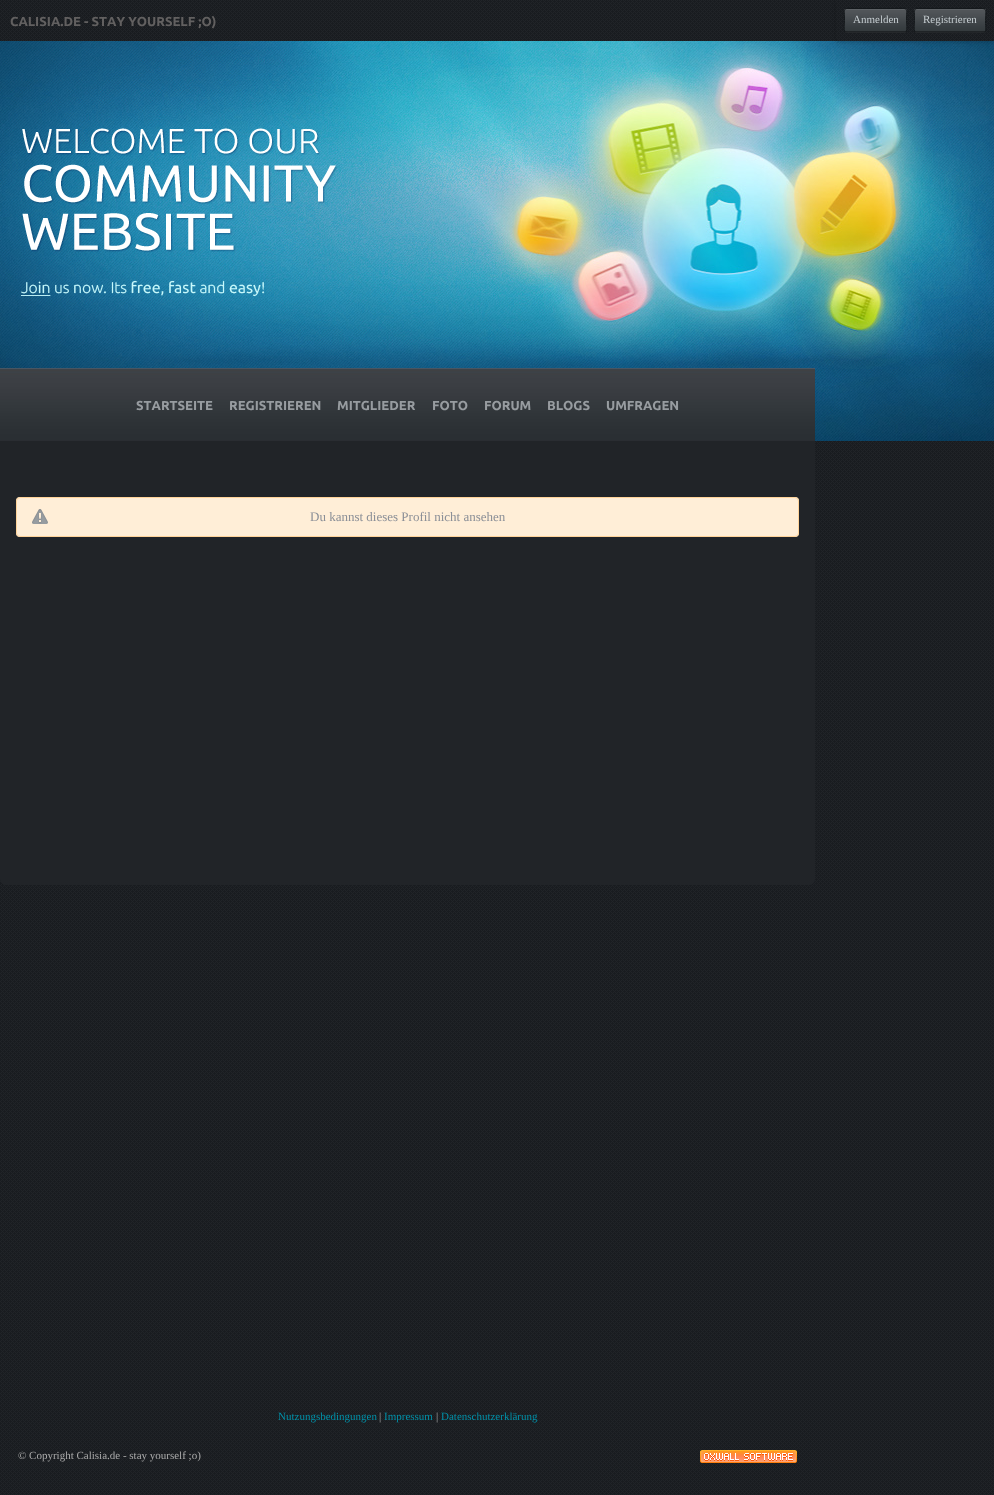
<svg xmlns="http://www.w3.org/2000/svg" width="994" height="1495" viewBox="0 0 994 1495">
  <style>
    .t1 { font: bold 13px Ubuntu; fill: #626060; }
    .t2 { font: 11px Liberation Serif; fill: #c5ccd0; }
    .t3 { font: bold 13px Ubuntu; fill: #979ca0; }
    .t4 { font: 13px Liberation Serif; fill: #8b8f97; }
    .t5 { font: 11px Liberation Serif; fill: #0091a9; }
    .t6 { font: 11px Liberation Serif; fill: #aaa; }
  </style>
  <rect width="100%" height="100%" fill="#fff"/>
  <image x="0" y="0" width="994" height="1495" href="images/1.png"/>
  <image x="0" y="41" width="994" height="400" href="images/2.png"/>
  <text x="10" y="26" class="t1">CALISIA.DE - STAY YOURSELF ;O)</text>
  <rect x="836" y="2" width="158" height="40" fill="#00000033" filter="blur(2px)"/>
  <image x="836" y="0" width="158" height="41" href="images/3.png"/>
  <image x="844" y="9" width="63" height="23" href="images/4.png"/>
  <path d="M906 32L904 32.5H847L845 32" fill="none" stroke="#25282b"/>
  <path d="M845 32C843.5 30 844.5 23 844.5 20.5C844.5 6.5 842 8.5 856.5 8.5H894.5C909 8.5 906.5 6.5 906.5 20.5C906.5 23 907.5 30 906 32" fill="none" stroke="#14181b"/>
  <text x="853" y="23" class="t2">Anmelden</text>
  <image x="914" y="9" width="72" height="23" href="images/5.png"/>
  <path d="M985 32H984.5C982.5 33.5 934.5 32.5 928 32.5H917L915 32" fill="none" stroke="#25282b"/>
  <path d="M915 32C913.5 30 914.5 23 914.5 20.5C914.5 6 912.5 8.5 928 8.5H972C989 8.5 985.5 6.5 985.5 23.5C985.5 26 986.5 30 985 32" fill="none" stroke="#14181b"/>
  <text x="923" y="23" class="t2">Registrieren</text>
  <image x="20" y="128" width="317" height="169" href="images/6.png"/>
  <image x="0" y="368" width="815" height="73" href="images/7.png"/>
  <text x="136" y="410" class="t3">STARTSEITE</text>
  <text x="229" y="410" class="t3">REGISTRIEREN</text>
  <text x="337" y="410" class="t3">MITGLIEDER</text>
  <text x="432" y="410" class="t3">FOTO</text>
  <text x="484" y="410" class="t3">FORUM</text>
  <text x="547" y="410" class="t3">BLOGS</text>
  <text x="606" y="410" class="t3">UMFRAGEN</text>
  <path d="M0 441H815V879C815 882.5 812.5 885 809 885H6C2.5 885 0 882.5 0 879Z" fill="#212428"/>
  <rect x="16" y="497" width="783" height="40" rx="4" fill="#ffeed7"/>
  <image x="32" y="509" width="16" height="15" href="images/8.png"/>
  <rect x="16.5" y="497.5" width="782" height="39" rx="3.5" fill="none" stroke="#ffd399"/>
  <text x="310" y="521" class="t4">Du kannst dieses Profil nicht ansehen</text>
  <text x="278" y="1420" class="t5">Nutzungsbedingungen</text>
  <text x="379" y="1420" class="t6">|</text>
  <text x="384" y="1420" class="t5">Impressum</text>
  <text x="436" y="1420" class="t6">|</text>
  <text x="441" y="1420" class="t5">Datenschutzerklärung</text>
  <text x="18" y="1459" class="t6">© Copyright Calisia.de - stay yourself ;o)</text>
  <image x="700" y="1450" width="97" height="13" href="images/9.png"/>
</svg>
